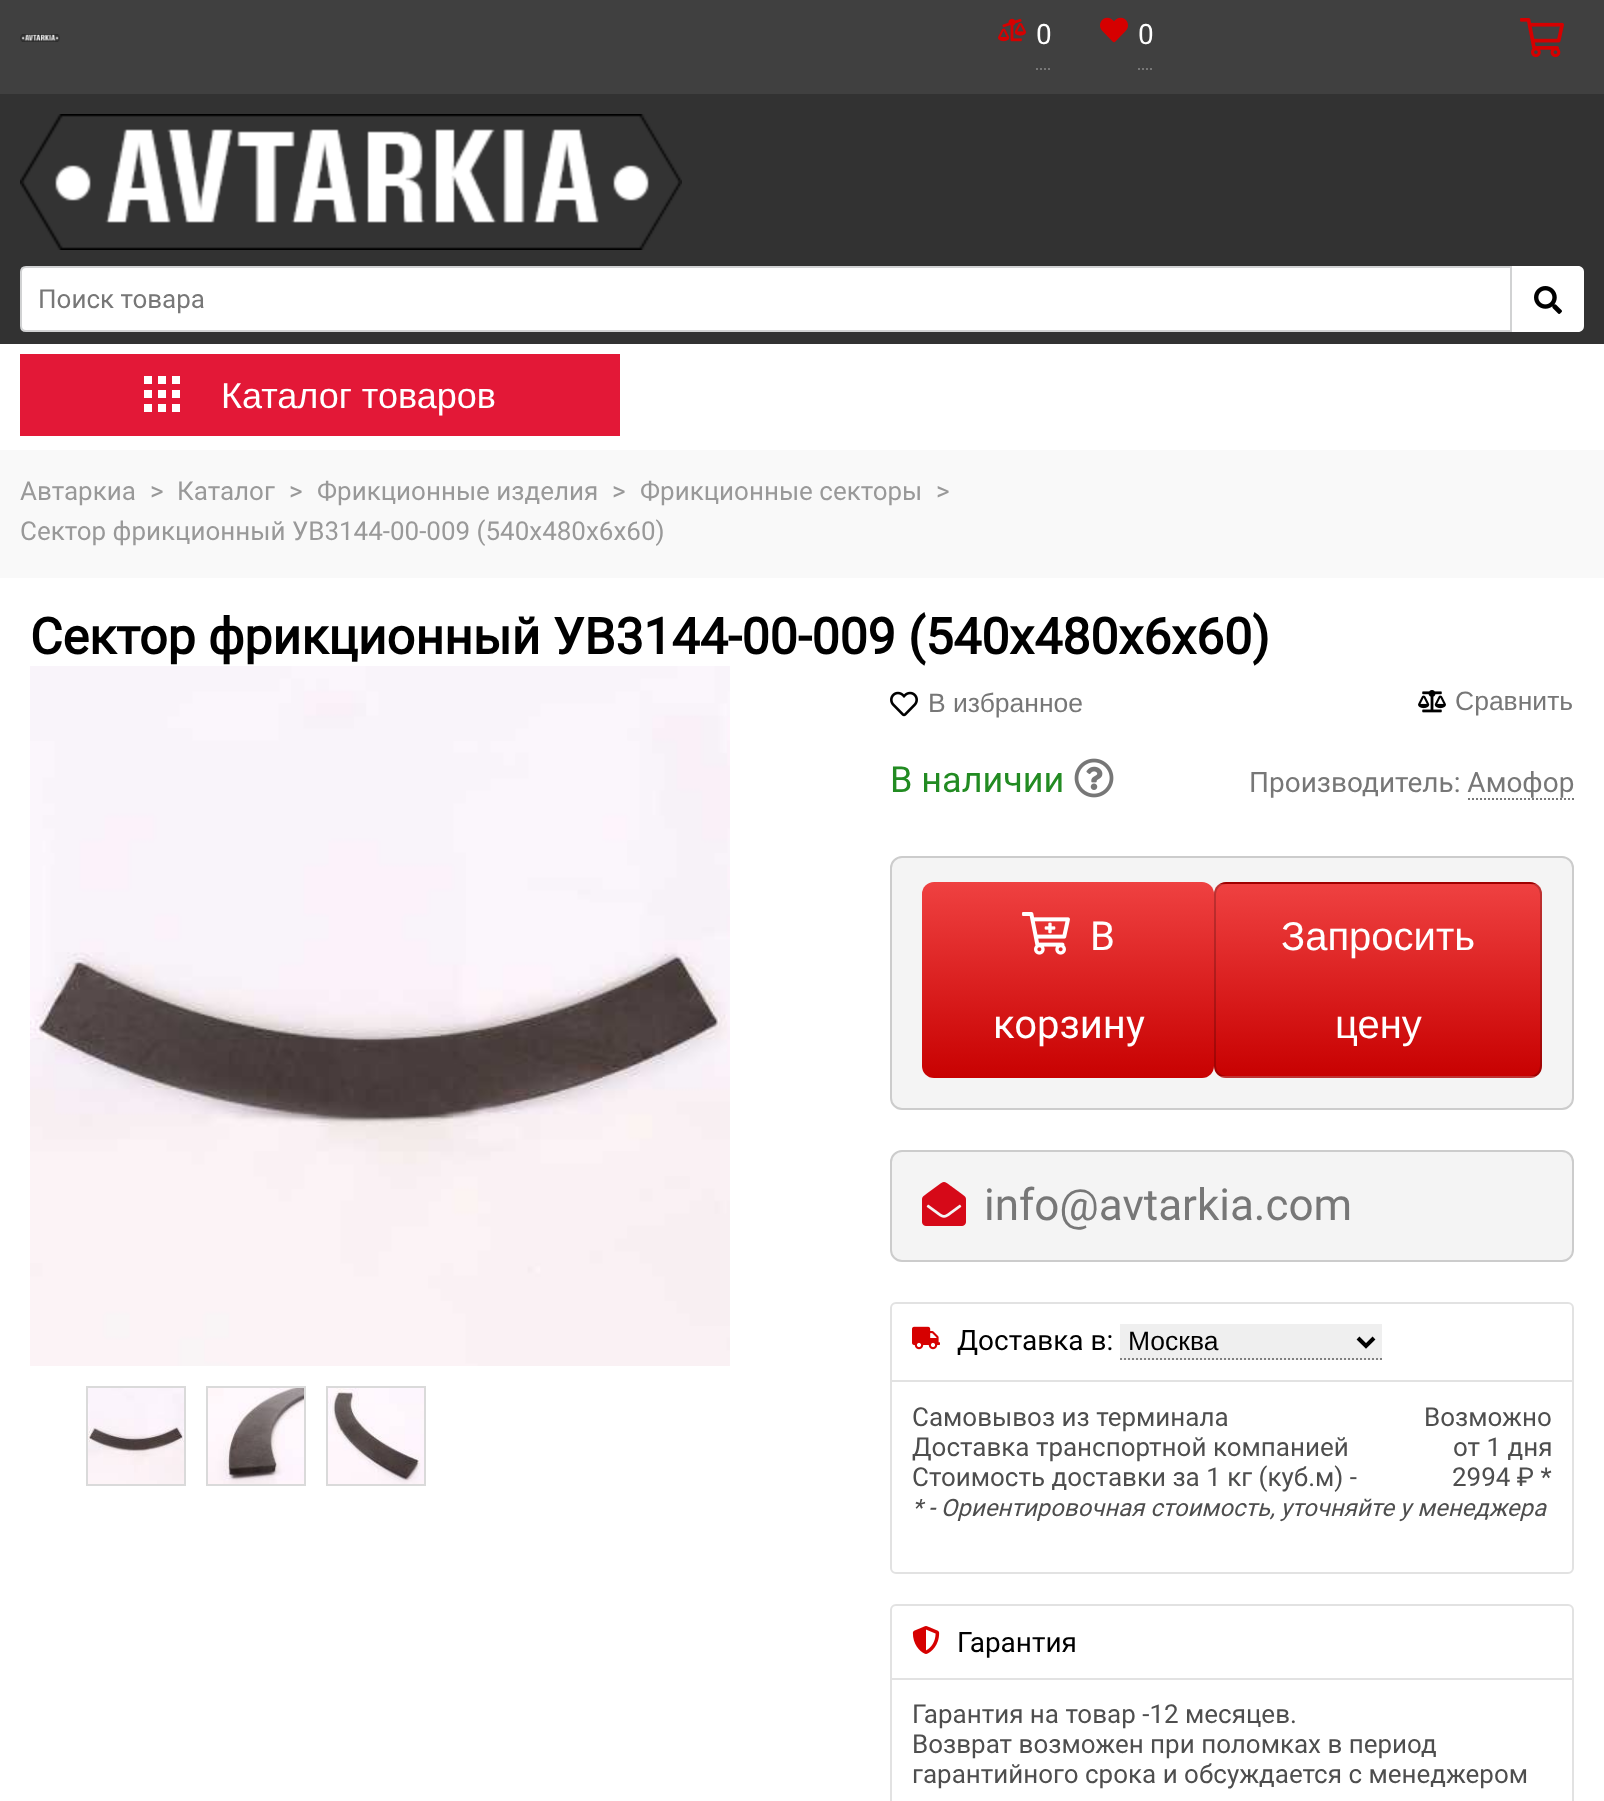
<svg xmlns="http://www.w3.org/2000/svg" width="1604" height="1801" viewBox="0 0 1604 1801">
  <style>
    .t1 { font: 28px Roboto; fill: #fff; }
    .t2 { font: 26px Roboto; fill: #777; }
    .t3 { font: 36px Liberation Sans; fill: #fff; }
    .t4 { font: 26px Roboto; fill: #999; }
    .t5 { font: bold 50px Roboto; fill: #000; }
    .t6 { font: 26.5px Liberation Sans; fill: #777; }
    .t7 { font: 36px Roboto; fill: #228b22; }
    .t8 { font: 28px Roboto; fill: #777; }
    .t9 { font: 40px Roboto; fill: #fff; }
    .t10 { font: 40px Liberation Sans; fill: #fff; }
    .t11 { font: 44px Roboto; fill: #777; }
    .t12 { font: 28px Roboto; fill: #000; }
    .t13 { font: 26.5px Liberation Sans; fill: #000; }
    .t14 { font: 26px Roboto; fill: #4e4e4e; }
    .t15 { font: italic 24px Roboto; fill: #4e4e4e; }
  </style>
  <defs>
    <linearGradient id="g1" gradientUnits="userSpaceOnUse" x1="1068" y1="1078" x2="1068" y2="882"><stop offset="0" stop-color="#c80101"/><stop offset="1" stop-color="#ef4141"/></linearGradient>
    <clipPath id="clip1"><rect x="1214" y="882" width="328" height="196" rx="12"/></clipPath>
    <linearGradient id="g2" gradientUnits="userSpaceOnUse" x1="1378" y1="884" x2="1378" y2="692"><stop offset="0" stop-color="#c80101"/><stop offset="1" stop-color="#ef4141"/></linearGradient>
    <linearGradient id="g3" gradientUnits="userSpaceOnUse" x1="1378" y1="1076" x2="1378" y2="884"><stop offset="0" stop-color="#c80101"/><stop offset="1" stop-color="#ef4141"/></linearGradient>
    <linearGradient id="g4" gradientUnits="userSpaceOnUse" x1="1378" y1="1268" x2="1378" y2="1076"><stop offset="0" stop-color="#c80101"/><stop offset="1" stop-color="#ef4141"/></linearGradient>
  </defs>
  <rect width="100%" height="100%" fill="#f9f9f9"/>
  <rect x="0" y="0" width="1604" height="94" fill="#404040"/>
  <image x="20" y="34" width="40" height="8" href="images/1.png"/>
  <image x="998" y="18" width="28" height="24" href="images/2.png"/>
  <path d="M1036 69H1052" fill="none" stroke="#777" stroke-width="2" stroke-dasharray="2 2"/>
  <text x="1036" y="44" class="t1">0</text>
  <image x="1100" y="17" width="28" height="26" href="images/3.png"/>
  <path d="M1138 69H1154" fill="none" stroke="#777" stroke-width="2" stroke-dasharray="2 2"/>
  <text x="1138" y="44" class="t1">0</text>
  <image x="1520" y="18" width="44" height="40" href="images/4.png"/>
  <rect x="0" y="94" width="1604" height="250" fill="#323232"/>
  <image x="20" y="114" width="662" height="136" href="images/5.png"/>
  <path d="M26 267H1511V331H26C23 331 21 329 21 326V272C21 269 23 267 26 267Z" fill="#fff" stroke="#d1d2d3" stroke-width="2"/>
  <text x="38" y="308" class="t2">Поиск товара</text>
  <path d="M1512 266H1578C1581.5 266 1584 268.5 1584 272V326C1584 329.5 1581.5 332 1578 332H1512Z" fill="#fff"/>
  <image x="1534" y="286" width="28" height="28" href="images/6.png"/>
  <rect x="0" y="344" width="1604" height="106" fill="#fff"/>
  <rect x="20" y="354" width="600" height="82" fill="#e31837"/>
  <image x="144" y="376" width="36" height="36" href="images/7.png"/>
  <text x="221" y="408" class="t3">Каталог товаров</text>
  <text x="20" y="500" class="t4">Автаркиа</text>
  <text x="150" y="500" class="t4">&gt;</text>
  <text x="177" y="500" class="t4">Каталог</text>
  <text x="289" y="500" class="t4">&gt;</text>
  <text x="317" y="500" class="t4">Фрикционные изделия</text>
  <text x="612" y="500" class="t4">&gt;</text>
  <text x="640" y="500" class="t4">Фрикционные секторы</text>
  <text x="936" y="500" class="t4">&gt;</text>
  <text x="20" y="540" class="t4">Сектор фрикционный УВ3144-00-009 (540x480x6x60)</text>
  <rect x="0" y="578" width="1604" height="1223" fill="#fff"/>
  <text x="30" y="654" class="t5">Сектор фрикционный УВ3144-00-009 (540x480x6x60)</text>
  <image x="30" y="666" width="700" height="700" href="images/8.png"/>
  <rect x="87" y="1387" width="98" height="98" fill="none" stroke="#dadada" stroke-width="2"/>
  <image x="88" y="1388" width="96" height="96" href="images/9.png"/>
  <rect x="207" y="1387" width="98" height="98" fill="none" stroke="#dadada" stroke-width="2"/>
  <image x="208" y="1388" width="96" height="96" href="images/10.png"/>
  <rect x="327" y="1387" width="98" height="98" fill="none" stroke="#dadada" stroke-width="2"/>
  <image x="328" y="1388" width="96" height="96" href="images/11.png"/>
  <image x="890" y="691" width="28" height="26" href="images/12.png"/>
  <text x="928" y="712" class="t6">В избранное</text>
  <image x="1418" y="690" width="28" height="23" href="images/13.png"/>
  <text x="1455" y="710" class="t6">Сравнить</text>
  <text x="890" y="792" class="t7">В наличии</text>
  <image x="1074" y="758" width="40" height="40" href="images/14.png"/>
  <text x="1249" y="792" class="t8">Производитель: Амофор</text>
  <path d="M1468 799H1574" fill="none" stroke="#777" stroke-width="2" stroke-dasharray="2 2"/>
  <rect x="891" y="857" width="682" height="252" rx="11" fill="#f4f4f4" stroke="#ccc" stroke-width="2"/>
  <rect x="922" y="882" width="292" height="196" rx="12" fill="url(#g1)"/>
  <image x="1022" y="912" width="48" height="43" href="images/15.png"/>
  <text x="1090" y="950" class="t9">В</text>
  <text x="993" y="1038" class="t9">корзину</text>
  <g clip-path="url(#clip1)">
    <rect x="1214" y="882" width="328" height="2" fill="url(#g2)"/>
    <rect x="1214" y="884" width="328" height="192" fill="url(#g3)"/>
    <rect x="1214" y="1076" width="328" height="2" fill="url(#g4)"/>
  </g>
  <rect x="1215" y="883" width="326" height="194" rx="11" fill="none" stroke="#00000033" stroke-width="2"/>
  <text x="1281" y="950" class="t10">Запросить</text>
  <text x="1335" y="1038" class="t10">цену</text>
  <rect x="891" y="1151" width="682" height="110" rx="11" fill="#f4f4f4" stroke="#ccc" stroke-width="2"/>
  <image x="922" y="1182" width="44" height="44" href="images/16.png"/>
  <text x="984" y="1220" class="t11">info@avtarkia.com</text>
  <rect x="891" y="1303" width="682" height="270" rx="5" fill="none" stroke="#e2e2e2" stroke-width="2"/>
  <rect x="892" y="1380" width="680" height="2" fill="#e2e2e2"/>
  <image x="912" y="1326" width="28" height="24" href="images/17.png"/>
  <text x="957" y="1350" class="t12">Доставка в:</text>
  <rect x="1120" y="1324" width="262" height="36" fill="#efefef"/>
  <path d="M1120 1359H1382" fill="none" stroke="#808080" stroke-width="2" stroke-dasharray="2 2"/>
  <path d="M1358 1338L1366 1346L1374 1338" fill="none" stroke="#000" stroke-width="4"/>
  <text x="1128" y="1350" class="t13">Москва</text>
  <text x="912" y="1426" class="t14">Самовывоз из терминала</text>
  <text x="1424" y="1426" class="t14">Возможно</text>
  <text x="912" y="1456" class="t14">Доставка транспортной компанией</text>
  <text x="1453" y="1456" class="t14">от 1 дня</text>
  <text x="912" y="1486" class="t14">Стоимость доставки за 1 кг (куб.м) -</text>
  <text x="1452" y="1486" class="t14">2994 ₽ *</text>
  <text x="912" y="1516" class="t15">* - Ориентировочная стоимость, уточняйте у менеджера</text>
  <rect x="891" y="1605" width="682" height="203" rx="5" fill="none" stroke="#e2e2e2" stroke-width="2"/>
  <rect x="892" y="1678" width="680" height="2" fill="#e2e2e2"/>
  <image x="912" y="1626" width="28" height="28" href="images/18.png"/>
  <text x="957" y="1652" class="t12">Гарантия</text>
  <text x="912" y="1723" class="t14">Гарантия на товар -12 месяцев.</text>
  <text x="912" y="1753" class="t14">Возврат возможен при поломках в период</text>
  <text x="912" y="1783" class="t14">гарантийного срока и обсуждается с менеджером</text>
</svg>
